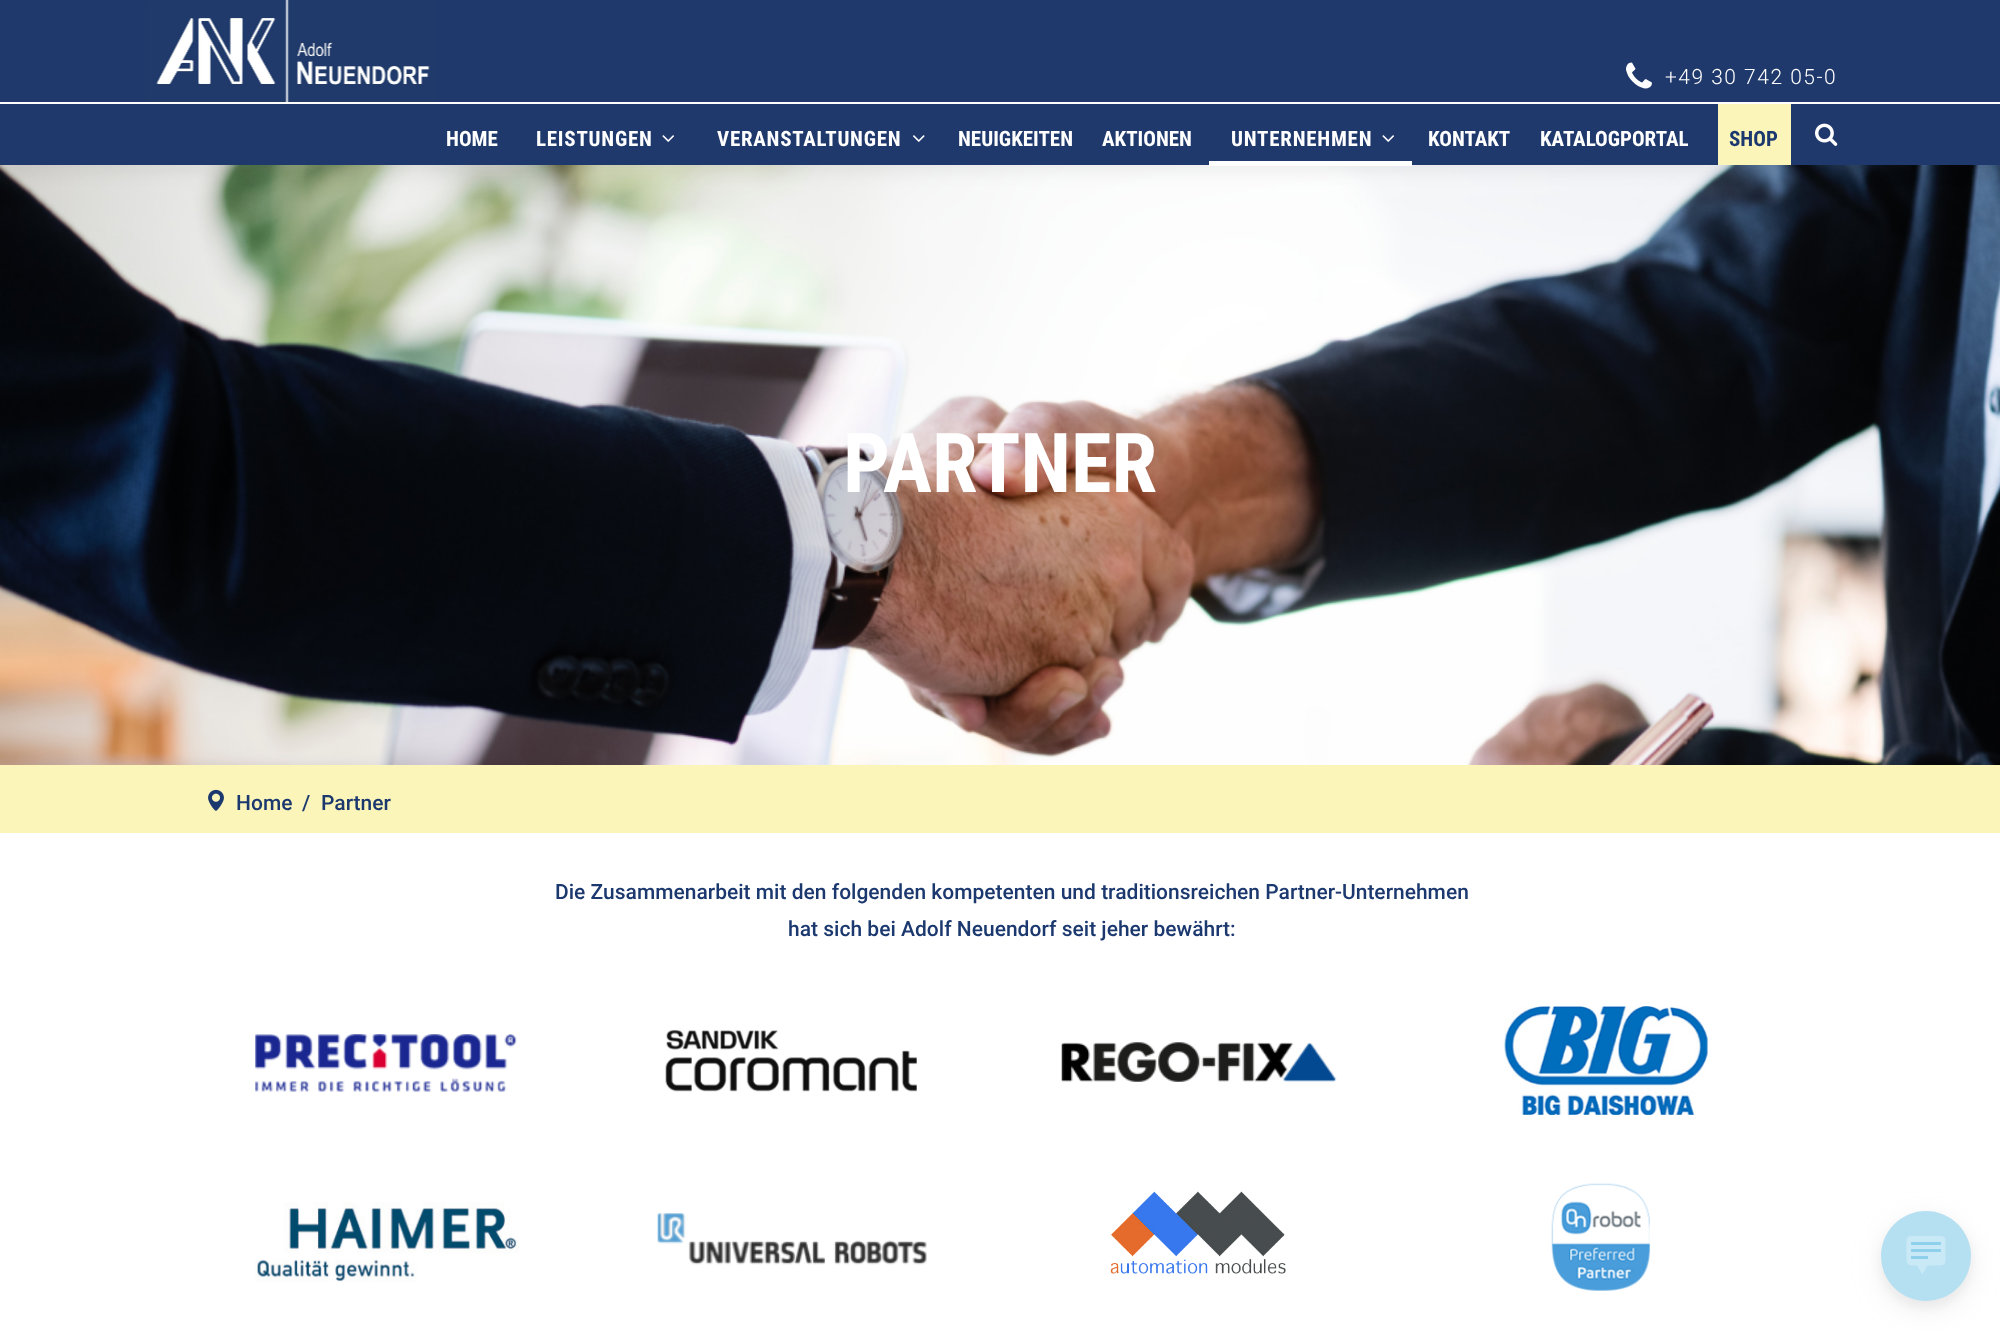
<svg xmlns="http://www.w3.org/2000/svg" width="2000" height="1330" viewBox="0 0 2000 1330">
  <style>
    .t1 { font: 300 21px Roboto; letter-spacing: 1.5px; fill: #fff; }
    .t2 { font: bold 21px Roboto Condensed; fill: #fff; }
    .t3 { font: bold 21px Roboto Condensed; letter-spacing: 0.75px; fill: #fff; }
    .t4 { font: bold 21px Roboto Condensed; fill: #1c396f; }
    .t5 { font: bold 82.5px Roboto Condensed; fill: #fff; }
    .t6 { font: 500 21px Roboto; fill: #1c396f; }
  </style>
  <rect width="100%" height="100%" fill="#fff"/>
  <image x="0" y="165" width="2000" height="600" href="images/6.png"/>
  <rect x="8" y="8" width="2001" height="165" fill="#0000000d" filter="blur(7.5px)"/>
  <rect x="0" y="0" width="2000" height="165" fill="#20396c"/>
  <image x="145" y="0" width="292" height="102" href="images/1.png"/>
  <image x="1626" y="62" width="26" height="27" href="images/2.png"/>
  <text x="1665" y="84" class="t1">+49 30 742 05-0</text>
  <text x="446" y="146" class="t2">HOME</text>
  <text x="536" y="146" class="t3">LEISTUNGEN</text>
  <image x="662" y="135" width="12" height="7" href="images/3.png"/>
  <text x="717" y="146" class="t3">VERANSTALTUNGEN</text>
  <image x="913" y="135" width="12" height="7" href="images/4.png"/>
  <text x="958" y="146" class="t2">NEUIGKEITEN</text>
  <text x="1102" y="146" class="t2">AKTIONEN</text>
  <text x="1231" y="146" class="t3">UNTERNEHMEN</text>
  <image x="1382" y="135" width="12" height="7" href="images/3.png"/>
  <rect x="1209" y="161" width="203" height="5" fill="#fff"/>
  <text x="1428" y="146" class="t2">KONTAKT</text>
  <text x="1540" y="146" class="t2">KATALOGPORTAL</text>
  <rect x="1718" y="104" width="73" height="61" fill="#fbf5ba"/>
  <text x="1729" y="146" class="t4">SHOP</text>
  <image x="1815" y="123" width="23" height="23" href="images/5.png"/>
  <rect x="0" y="102" width="2000" height="2" fill="#fff"/>
  <text x="843" y="492" class="t5">PARTNER</text>
  <rect x="0" y="765" width="2000" height="68" fill="#fbf5ba"/>
  <image x="208" y="789" width="16" height="22" href="images/7.png"/>
  <text x="236" y="810" class="t6">Home</text>
  <text x="302" y="810" class="t6">/</text>
  <text x="321" y="810" class="t6">Partner</text>
  <text x="555" y="899" class="t6">Die Zusammenarbeit mit den folgenden kompetenten und traditionsreichen Partner-Unternehmen</text>
  <text x="788" y="936" class="t6">hat sich bei Adolf Neuendorf seit jeher bewährt:</text>
  <image x="255" y="1034" width="262" height="58" href="images/8.png"/>
  <image x="665" y="1029" width="252" height="63" href="images/9.png"/>
  <image x="1061" y="1042" width="276" height="40" href="images/10.png"/>
  <image x="1503" y="1006" width="205" height="109" href="images/11.png"/>
  <image x="255" y="1202" width="264" height="81" href="images/12.png"/>
  <image x="657" y="1213" width="270" height="52" href="images/13.png"/>
  <image x="1110" y="1191" width="176" height="83" href="images/14.png"/>
  <image x="1551" y="1183" width="100" height="108" href="images/15.png"/>
  <rect x="1881" y="1220" width="90" height="90" rx="45" fill="#b3b3b330" filter="blur(15px)"/>
  <rect x="1881" y="1217" width="90" height="90" rx="45" fill="#b3b3b333" filter="blur(6px)"/>
  <circle cx="1926" cy="1256" r="45" fill="#b4e0f2"/>
  <image x="1906" y="1236" width="40" height="38" href="images/16.png"/>
</svg>
